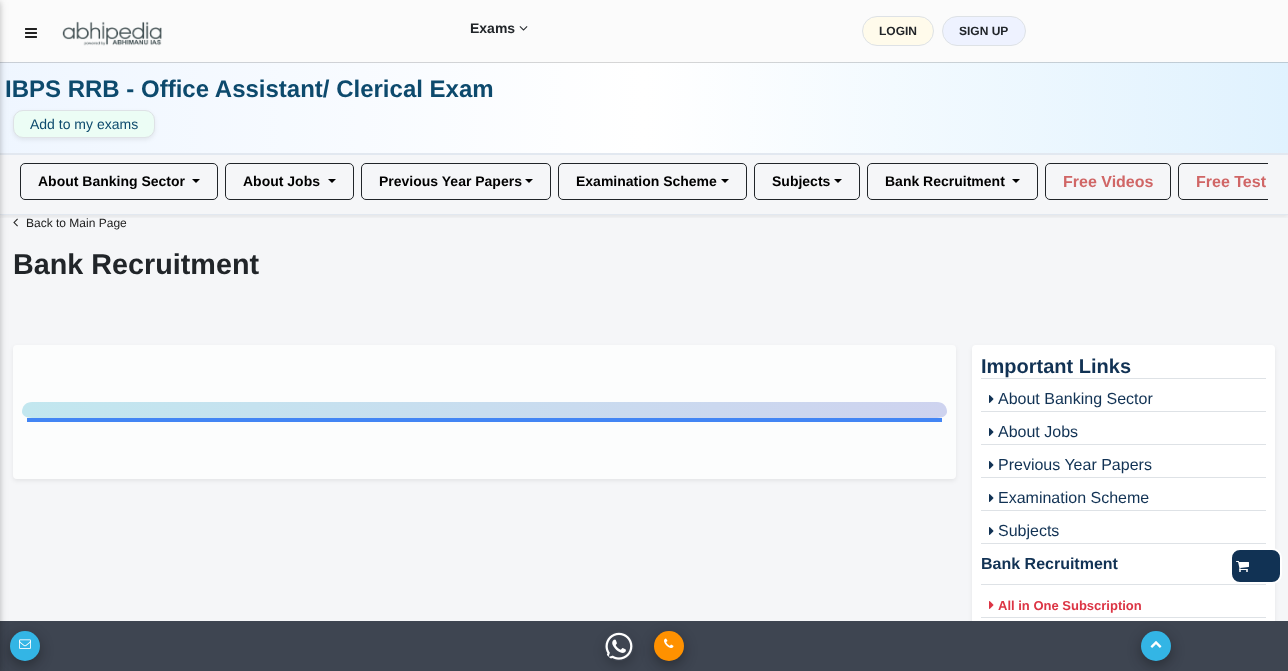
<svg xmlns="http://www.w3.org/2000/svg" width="1288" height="671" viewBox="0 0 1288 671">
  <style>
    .t1 { font: bold 14px Liberation Sans; fill: #212529; }
    .t2 { font: bold 12px Liberation Sans; fill: #212529; }
    .t3 { font: bold 24px Liberation Sans; fill: #0d4a6d; }
    .t4 { font: 14px Liberation Sans; fill: #0d4a6d; }
    .t5 { font: bold 14px Liberation Sans; fill: #000; }
    .t6 { font: bold 16px Liberation Sans; fill: #d06666; }
    .t7 { font: 12px Liberation Sans; fill: #212121; }
    .t8 { font: bold 28.75px Liberation Sans; fill: #212529; }
    .t9 { font: bold 20px Liberation Sans; fill: #113254; }
    .t10 { font: 16px Liberation Sans; fill: #113254; }
    .t11 { font: bold 16px Liberation Sans; fill: #113254; }
    .t12 { font: bold 13px Liberation Sans; fill: #dc3545; }
  </style>
  <defs>
    <linearGradient id="g1" gradientUnits="userSpaceOnUse" x1="0" y1="104" x2="1288" y2="103"><stop offset="0" stop-color="#eff6ff"/><stop offset="0.5" stop-color="#fff"/><stop offset="1" stop-color="#e0f2fe"/></linearGradient>
    <clipPath id="clip1"><rect x="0" y="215" width="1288" height="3"/></clipPath>
    <clipPath id="clip2"><path d="M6 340H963V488H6ZM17 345H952C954 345 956 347 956 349V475C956 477 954 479 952 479H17C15 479 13 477 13 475V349C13 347 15 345 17 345Z" clip-rule="evenodd"/></clipPath>
    <clipPath id="clip3"><rect x="20" y="163" width="1248" height="47"/></clipPath>
    <linearGradient id="g2" gradientUnits="userSpaceOnUse" x1="22" y1="410" x2="947" y2="410"><stop offset="0" stop-color="#c2e7ef"/><stop offset="1" stop-color="#ced3ef"/></linearGradient>
    <clipPath id="clip4"><path d="M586 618H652V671H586ZM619 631C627.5 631 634 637.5 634 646C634 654.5 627.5 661 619 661C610.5 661 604 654.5 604 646C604 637.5 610.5 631 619 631Z" clip-rule="evenodd"/></clipPath>
  </defs>
  <rect width="100%" height="100%" fill="#f5f6f8"/>
  <rect x="0" y="62" width="1288" height="91" fill="url(#g1)"/>
  <rect x="0" y="1" width="1288" height="62" fill="#00000029" filter="blur(0.5px)"/>
  <rect x="0" y="0" width="1288" height="62" fill="#fbfbfb"/>
  <rect x="0" y="153" width="1288" height="1" fill="#e2e8f0"/>
  <rect x="13" y="112" width="142" height="28" rx="10" fill="#00000012" filter="blur(2px)"/>
  <rect x="13.5" y="110.5" width="141" height="27" rx="9.5" fill="#ecfdf5" stroke="#dee2e6"/>
  <image x="13" y="218" width="5" height="9" href="images/4.png"/>
  <g clip-path="url(#clip1)">
    <rect x="0" y="156" width="1288" height="61" fill="#00000012" filter="blur(2px)"/>
  </g>
  <rect x="0" y="154" width="1288" height="1" fill="#e2e8f0"/>
  <rect x="0" y="214" width="1288" height="1" fill="#e2e8f0"/>
  <g clip-path="url(#clip2)">
    <rect x="13" y="347" width="943" height="134" rx="4" fill="#00000012" filter="blur(2px)"/>
  </g>
  <rect x="13" y="345" width="943" height="134" rx="4" fill="#ffffffb5"/>
  <rect x="972" y="347" width="303" height="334" rx="4" fill="#00000012" filter="blur(2px)"/>
  <rect x="972" y="345" width="303" height="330" rx="4" fill="#fff"/>
  <rect x="0" y="621" width="1288" height="50" fill="#3e4551"/>
  <rect x="10" y="635" width="30" height="30" rx="15" fill="#00000026" filter="blur(7.5px)"/>
  <rect x="10" y="636" width="30" height="30" rx="15" fill="#0000002e" filter="blur(5.5px)"/>
  <circle cx="25" cy="646" r="15" fill="#33b5e5"/>
  <rect x="-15" y="2" width="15" height="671" fill="#0000001f" filter="blur(5px)"/>
  <rect x="-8" y="2" width="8" height="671" fill="#00000029" filter="blur(2.5px)"/>
  <image x="25" y="28" width="12" height="10" href="images/1.png"/>
  <image x="62" y="21" width="100" height="25" href="images/2.png"/>
  <text x="470" y="33" class="t1">Exams</text>
  <image x="519" y="26" width="9" height="5" href="images/3.png"/>
  <rect x="862.5" y="16.5" width="71" height="29" rx="14.5" fill="#fffbeb" stroke="#dee2e6"/>
  <text x="879" y="35" class="t2">LOGIN</text>
  <rect x="942.5" y="16.5" width="83" height="29" rx="14.5" fill="#eef2ff" stroke="#dee2e6"/>
  <text x="959" y="35" class="t2">SIGN UP</text>
  <text x="5" y="97" class="t3">IBPS RRB - Office Assistant/ Clerical Exam</text>
  <text x="30" y="129" class="t4">Add to my exams</text>
  <rect x="20.5" y="163.5" width="197" height="36" rx="4.5" fill="none" stroke="#212529"/>
  <text x="38" y="186" class="t5">About Banking Sector</text>
  <path d="M192 179H200L196 183Z" fill="#000"/>
  <rect x="225.5" y="163.5" width="128" height="36" rx="4.5" fill="none" stroke="#212529"/>
  <text x="243" y="186" class="t5">About Jobs</text>
  <path d="M328 179H336L332 183Z" fill="#000"/>
  <rect x="361.5" y="163.5" width="189" height="36" rx="4.5" fill="none" stroke="#212529"/>
  <text x="379" y="186" class="t5">Previous Year Papers</text>
  <path d="M525 179H533L529 183Z" fill="#000"/>
  <rect x="558.5" y="163.5" width="188" height="36" rx="4.5" fill="none" stroke="#212529"/>
  <text x="576" y="186" class="t5">Examination Scheme</text>
  <path d="M721 179H729L725 183Z" fill="#000"/>
  <rect x="754.5" y="163.5" width="105" height="36" rx="4.5" fill="none" stroke="#212529"/>
  <text x="772" y="186" class="t5">Subjects</text>
  <path d="M834 179H842L838 183Z" fill="#000"/>
  <rect x="867.5" y="163.5" width="170" height="36" rx="4.5" fill="none" stroke="#212529"/>
  <text x="885" y="186" class="t5">Bank Recruitment</text>
  <path d="M1012 179H1020L1016 183Z" fill="#000"/>
  <rect x="1045.5" y="163.5" width="125" height="36" rx="4.5" fill="none" stroke="#212529"/>
  <text x="1063" y="187" class="t6">Free Videos</text>
  <g clip-path="url(#clip3)">
    <rect x="1178.5" y="163.5" width="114" height="36" rx="4.5" fill="none" stroke="#212529"/>
  </g>
  <text x="1196" y="187" class="t6">Free Test</text>
  <text x="26" y="227" class="t7">Back to Main Page</text>
  <text x="13" y="274" class="t8">Bank Recruitment</text>
  <path d="M32 402H937C943 402 947 406 947 412C947 415 943 418 937 418H32C26 418 22 415 22 412C22 406 26 402 32 402Z" fill="url(#g2)"/>
  <rect x="27" y="418" width="915" height="4" fill="#4285f4"/>
  <rect x="981" y="378" width="285" height="1" fill="#dee2e6"/>
  <text x="981" y="373" class="t9">Important Links</text>
  <rect x="981" y="411" width="285" height="1" fill="#dee2e6"/>
  <image x="989" y="395" width="5" height="8" href="images/5.png"/>
  <text x="998" y="404" class="t10">About Banking Sector</text>
  <rect x="981" y="444" width="285" height="1" fill="#dee2e6"/>
  <image x="989" y="428" width="5" height="8" href="images/5.png"/>
  <text x="998" y="437" class="t10">About Jobs</text>
  <rect x="981" y="477" width="285" height="1" fill="#dee2e6"/>
  <image x="989" y="461" width="5" height="8" href="images/5.png"/>
  <text x="998" y="470" class="t10">Previous Year Papers</text>
  <rect x="981" y="510" width="285" height="1" fill="#dee2e6"/>
  <image x="989" y="494" width="5" height="8" href="images/5.png"/>
  <text x="998" y="503" class="t10">Examination Scheme</text>
  <rect x="981" y="543" width="285" height="1" fill="#dee2e6"/>
  <image x="989" y="527" width="5" height="8" href="images/5.png"/>
  <text x="998" y="536" class="t10">Subjects</text>
  <rect x="981" y="584" width="285" height="1" fill="#dee2e6"/>
  <text x="981" y="569" class="t11">Bank Recruitment</text>
  <rect x="981" y="617" width="285" height="1" fill="#dee2e6"/>
  <image x="989" y="601" width="5" height="8" href="images/6.png"/>
  <text x="998" y="610" class="t12">All in One Subscription</text>
  <rect x="1231" y="549" width="50" height="34" rx="9" fill="#113254" stroke="#fff" stroke-width="2"/>
  <image x="1236" y="561" width="13" height="11" href="images/7.png"/>
  <image x="19" y="639" width="12" height="10" href="images/8.png"/>
  <g clip-path="url(#clip4)">
    <rect x="604" y="636" width="30" height="30" rx="15" fill="#0000002e" filter="blur(5.5px)"/>
  </g>
  <image x="605" y="632" width="28" height="28" href="images/9.png"/>
  <rect x="654" y="635" width="30" height="30" rx="15" fill="#00000026" filter="blur(7.5px)"/>
  <rect x="654" y="636" width="30" height="30" rx="15" fill="#0000002e" filter="blur(5.5px)"/>
  <circle cx="669" cy="646" r="15" fill="#ff9100"/>
  <image x="664" y="638" width="10" height="10" href="images/10.png"/>
  <rect x="1141" y="635" width="30" height="30" rx="15" fill="#00000026" filter="blur(7.5px)"/>
  <rect x="1141" y="636" width="30" height="30" rx="15" fill="#0000002e" filter="blur(5.5px)"/>
  <circle cx="1156" cy="646" r="15" fill="#33b5e5"/>
  <image x="1150" y="641" width="12" height="7" href="images/11.png"/>
</svg>
